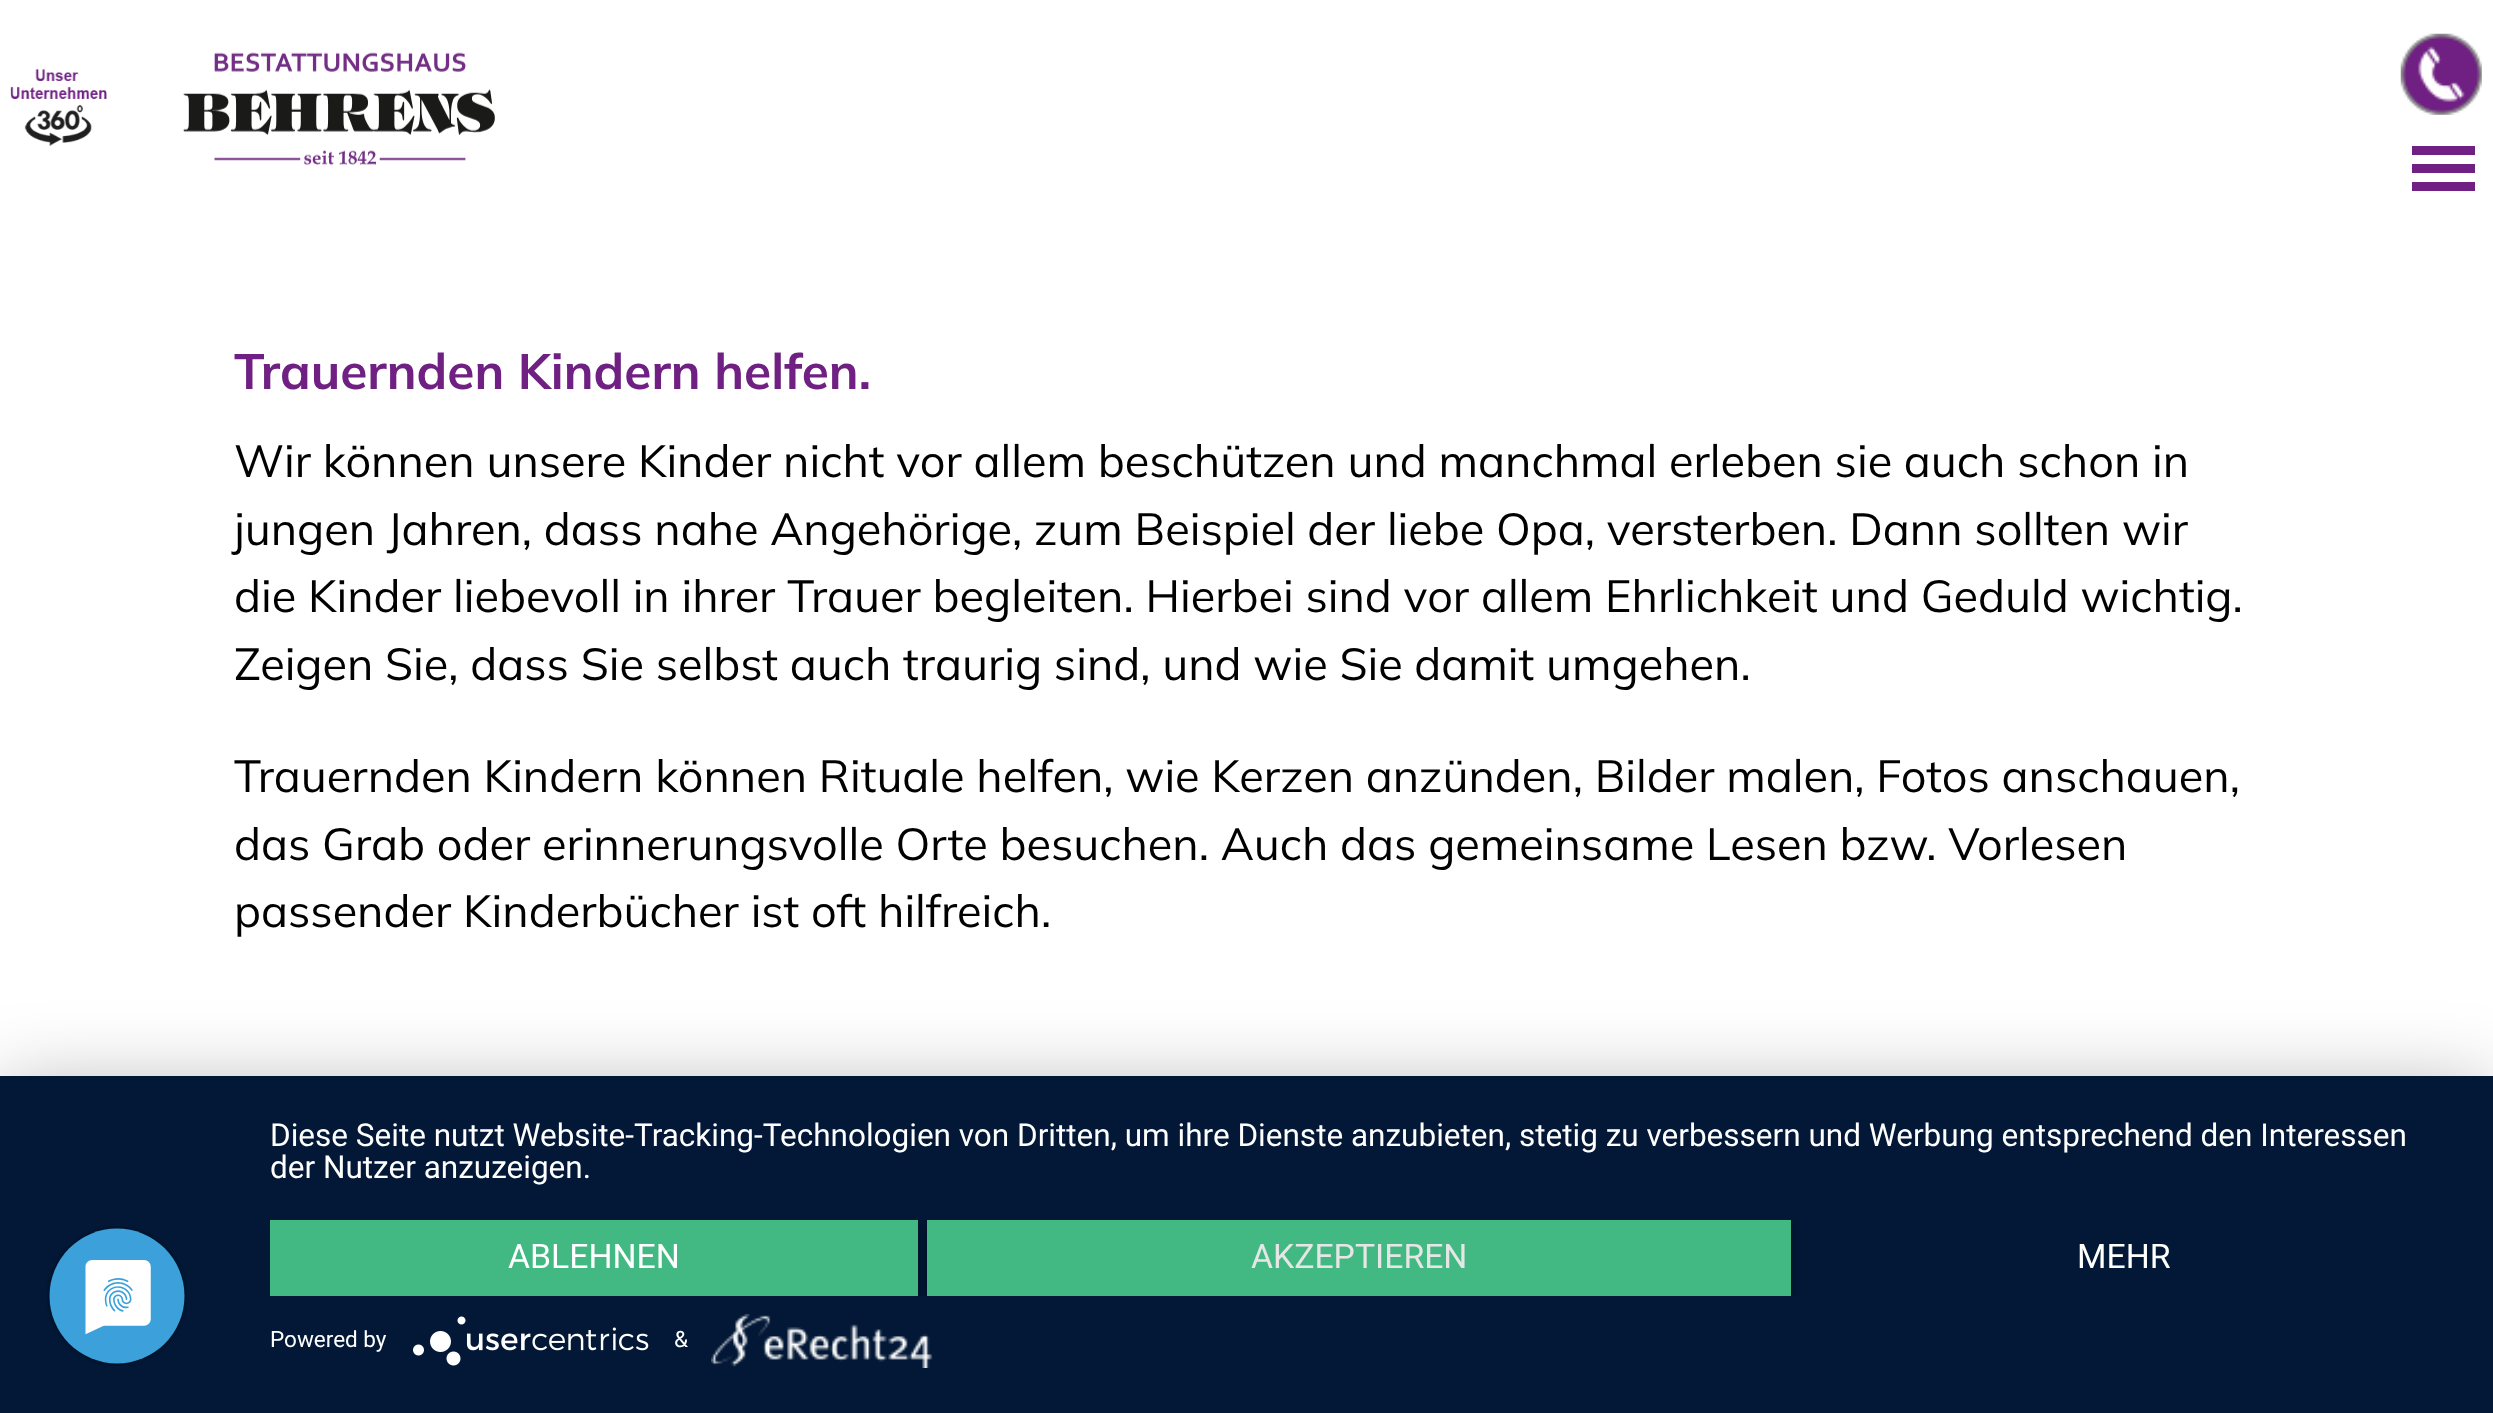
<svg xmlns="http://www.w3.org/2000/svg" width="2493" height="1413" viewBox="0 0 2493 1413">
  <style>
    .t1 { font: 200 49.5px Mulish; fill: #6f2082; }
    .t2 { font: 200 45px 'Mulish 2'; fill: #000; }
    .t3 { font: 31.5px Roboto; fill: #fff; }
    .t4 { font: 33.75px Roboto; fill: #fff; }
    .t5 { font: 33.75px Roboto; fill: #e6e6e6; }
    .t6 { font: 22.5px Roboto; fill: #fff; }
  </style>
  <defs>
    <clipPath id="clip1"><rect x="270" y="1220" width="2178" height="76"/></clipPath>
  </defs>
  <rect width="100%" height="100%" fill="#fff"/>
  <image x="10" y="69" width="97" height="77" href="images/1.png"/>
  <image x="183" y="52" width="312" height="113" href="images/2.png"/>
  <image x="2400" y="33" width="82" height="82" href="images/3.png"/>
  <rect x="2412" y="164" width="63" height="9" fill="#6f2082"/>
  <rect x="2412" y="146" width="63" height="9" fill="#6f2082"/>
  <rect x="2412" y="182" width="63" height="9" fill="#6f2082"/>
  <text x="234" y="389" class="t1">Trauernden Kindern helfen.</text>
  <text x="234" y="477" class="t2">Wir können unsere Kinder nicht vor allem beschützen und manchmal erleben sie auch schon in</text>
  <text x="234" y="545" class="t2">jungen Jahren, dass nahe Angehörige, zum Beispiel der liebe Opa, versterben. Dann sollten wir</text>
  <text x="234" y="612" class="t2">die Kinder liebevoll in ihrer Trauer begleiten. Hierbei sind vor allem Ehrlichkeit und Geduld wichtig.</text>
  <text x="234" y="680" class="t2">Zeigen Sie, dass Sie selbst auch traurig sind, und wie Sie damit umgehen.</text>
  <text x="234" y="792" class="t2">Trauernden Kindern können Rituale helfen, wie Kerzen anzünden, Bilder malen, Fotos anschauen,</text>
  <text x="234" y="860" class="t2">das Grab oder erinnerungsvolle Orte besuchen. Auch das gemeinsame Lesen bzw. Vorlesen</text>
  <text x="234" y="927" class="t2">passender Kinderbücher ist oft hilfreich.</text>
  <rect x="0" y="1089" width="2493" height="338" fill="#0000004d" filter="blur(40.5px)"/>
  <rect x="0" y="1076" width="2493" height="337" fill="#021836"/>
  <image x="47" y="1226" width="140" height="140" href="images/4.png"/>
  <text x="270" y="1146" class="t3">Diese Seite nutzt Website-Tracking-Technologien von Dritten, um ihre Dienste anzubieten, stetig zu verbessern und Werbung entsprechend den Interessen</text>
  <text x="270" y="1178" class="t3">der Nutzer anzuzeigen.</text>
  <g clip-path="url(#clip1)">
    <rect x="270" y="1222" width="648" height="76" fill="#00000066" filter="blur(4.5px)"/>
  </g>
  <rect x="270" y="1220" width="648" height="76" fill="#42b983"/>
  <text x="508" y="1268" class="t4">ABLEHNEN</text>
  <g clip-path="url(#clip1)">
    <rect x="927" y="1222" width="864" height="76" fill="#00000066" filter="blur(4.5px)"/>
  </g>
  <rect x="927" y="1220" width="864" height="76" fill="#42b983"/>
  <text x="1251" y="1268" class="t5">AKZEPTIEREN</text>
  <text x="2077" y="1268" class="t4">MEHR</text>
  <text x="270" y="1347" class="t6">Powered by</text>
  <image x="413" y="1316" width="236" height="50" href="images/5.png"/>
  <text x="674" y="1347" class="t6">&amp;</text>
  <image x="711" y="1314" width="222" height="54" href="images/6.png"/>
</svg>
